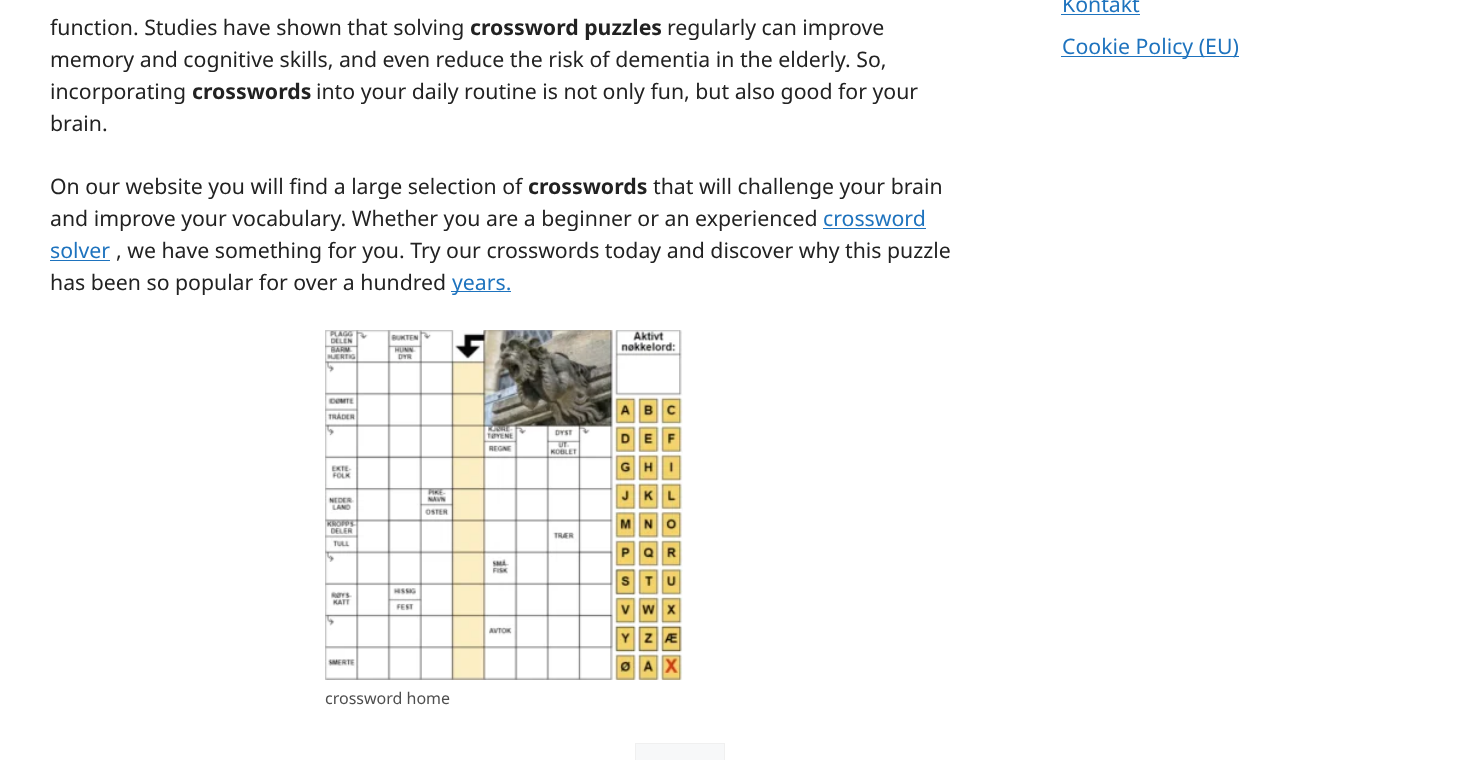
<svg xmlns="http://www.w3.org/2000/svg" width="1473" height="760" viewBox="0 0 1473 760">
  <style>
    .t1 { font: 21.25px Noto Sans; fill: #222; }
    .t2 { font: bold 21.25px Noto Sans; fill: #222; }
    .t3 { font: 21.25px Noto Sans; fill: #1e73be; }
    .t4 { font: 16px Noto Sans; fill: #4e4e4e; }
  </style>
  <rect width="100%" height="100%" fill="#fff"/>
  <text x="50" y="35" class="t1">function. Studies have shown that solving</text>
  <text x="470" y="35" class="t2">crossword puzzles</text>
  <text x="667" y="35" class="t1">regularly can improve</text>
  <text x="50" y="67" class="t1">memory and cognitive skills, and even reduce the risk of dementia in the elderly. So,</text>
  <text x="50" y="99" class="t1">incorporating</text>
  <text x="192" y="99" class="t2">crosswords</text>
  <text x="316" y="99" class="t1">into your daily routine is not only fun, but also good for your</text>
  <text x="50" y="131" class="t1">brain.</text>
  <text x="50" y="194" class="t1">On our website you will find a large selection of</text>
  <text x="528" y="194" class="t2">crosswords</text>
  <text x="653" y="194" class="t1">that will challenge your brain</text>
  <text x="50" y="226" class="t1">and improve your vocabulary. Whether you are a beginner or an experienced</text>
  <text x="823" y="226" class="t3">crossword</text>
  <rect x="823" y="228" width="103" height="1" fill="#1e73be"/>
  <text x="50" y="258" class="t3">solver</text>
  <rect x="50" y="260" width="60" height="1" fill="#1e73be"/>
  <text x="116" y="258" class="t1">, we have something for you. Try our crosswords today and discover why this puzzle</text>
  <text x="50" y="290" class="t1">has been so popular for over a hundred</text>
  <rect x="451" y="291" width="60" height="1" fill="#1e73be"/>
  <text x="452" y="290" class="t3">years.</text>
  <image x="325" y="330" width="358" height="350" href="images/1.png"/>
  <text x="325" y="704" class="t4">crossword home</text>
  <rect x="635.5" y="743.5" width="89" height="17" fill="#f7f8f9" stroke="#f0f0f0"/>
  <text x="1062" y="12" class="t3">Kontakt</text>
  <rect x="1061" y="14" width="79" height="1" fill="#1e73be"/>
  <rect x="1061" y="56" width="178" height="1" fill="#1e73be"/>
  <text x="1062" y="54" class="t3">Cookie Policy (EU)</text>
</svg>
